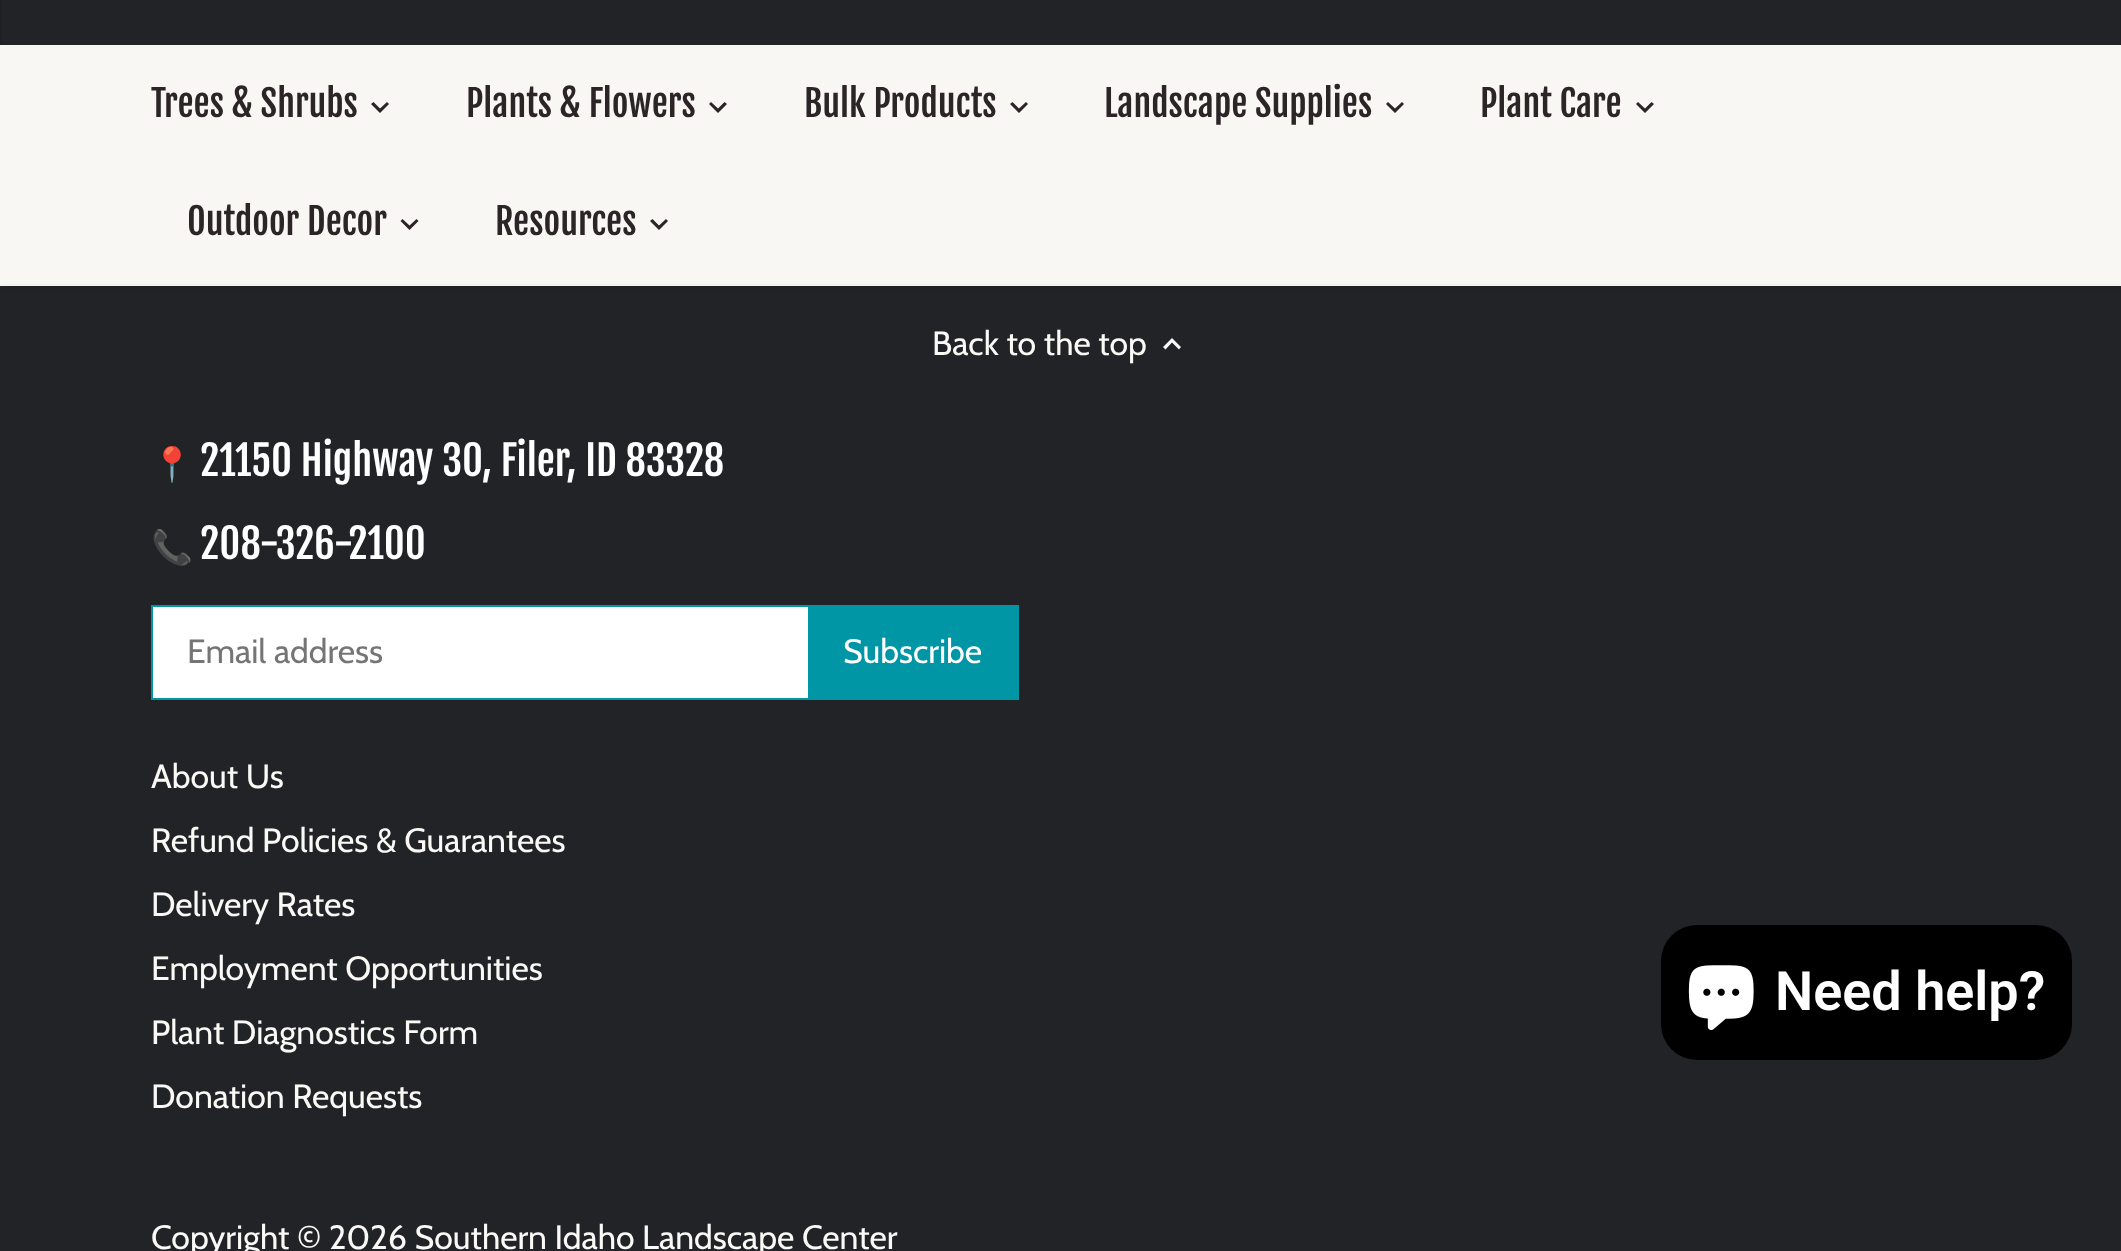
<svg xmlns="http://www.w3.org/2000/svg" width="2121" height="1251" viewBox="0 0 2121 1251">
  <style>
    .t1 { font: 36px Fjalla One; fill: #2c2528; }
    .t2 { font: 33.75px Cabin; fill: #faf9f6; }
    .t3 { font: 33.75px Noto Color Emoji; fill: #faf9f6; }
    .t4 { font: 40.5px Fjalla One; fill: #fff; }
    .t5 { font: 33.75px Cabin; fill: #757575; }
    .t6 { font: 33.75px Cabin; fill: #fff; }
    .t7 { font: 600 54px Roboto; fill: #fff; }
  </style>
  <rect width="100%" height="100%" fill="#212326"/>
  <rect x="0" y="284" width="2121" height="2" fill="#fff"/>
  <rect x="-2" y="-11" width="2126" height="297" fill="#00000014" filter="blur(3.5px)"/>
  <rect x="0" y="45" width="2121" height="239" fill="#f9f7f4"/>
  <rect x="2" y="0" width="2118" height="45" fill="#212326"/>
  <text x="151" y="117" class="t1">Trees &amp; Shrubs</text>
  <path d="M373.5 102L380 108.5L387 102L389 104L380 113L371 104Z" fill="#2c2528"/>
  <text x="466" y="117" class="t1">Plants &amp; Flowers</text>
  <path d="M711 102L718 108.5L724.5 102L727 104L718 113L709 104Z" fill="#2c2528"/>
  <text x="804" y="117" class="t1">Bulk Products</text>
  <path d="M1012.5 102L1019 108.5L1026 102L1028 104L1019 113L1010 104Z" fill="#2c2528"/>
  <text x="1104" y="117" class="t1">Landscape Supplies</text>
  <path d="M1388 102L1395 108.5L1402 102L1404 104L1395 113L1386 104Z" fill="#2c2528"/>
  <text x="1480" y="117" class="t1">Plant Care</text>
  <path d="M1638 102L1645 108.5L1651.5 102L1654 104L1645 113L1636 104Z" fill="#2c2528"/>
  <text x="187" y="235" class="t1">Outdoor Decor</text>
  <path d="M402.5 219L409.5 225.5L416.5 219L418.5 221L409.5 230L400.5 221Z" fill="#2c2528"/>
  <text x="495" y="235" class="t1">Resources</text>
  <path d="M652.5 219L659 225.5L666 219L668 221L659 230L650 221Z" fill="#2c2528"/>
  <text x="932" y="355" class="t2">Back to the top</text>
  <path d="M1165.5 349.5L1172 342.5L1179 349.5L1181 347L1172 338L1163 347Z" fill="#faf9f6"/>
  <text x="151" y="476" class="t3">📍</text>
  <text x="200" y="476" class="t4">21150 Highway 30, Filer, ID 83328</text>
  <text x="151" y="559" class="t3">📞</text>
  <text x="200" y="559" class="t4">208-326-2100</text>
  <rect x="153" y="607" width="655" height="91" fill="#fff"/>
  <rect x="152" y="606" width="864" height="93" fill="none" stroke="#0096a6" stroke-width="2"/>
  <text x="187" y="663" class="t5">Email address</text>
  <rect x="808" y="605" width="211" height="95" fill="#0096a6"/>
  <text x="843" y="663" class="t6">Subscribe</text>
  <text x="151" y="788" class="t2">About Us</text>
  <text x="151" y="852" class="t2">Refund Policies &amp; Guarantees</text>
  <text x="151" y="916" class="t2">Delivery Rates</text>
  <text x="151" y="980" class="t2">Employment Opportunities</text>
  <text x="151" y="1044" class="t2">Plant Diagnostics Form</text>
  <text x="151" y="1108" class="t2">Donation Requests</text>
  <text x="151" y="1249" class="t2">Copyright © 2026 Southern Idaho Landscape Center</text>
  <rect x="1661" y="925" width="411" height="135" rx="36" fill="#000"/>
  <image x="1688" y="965" width="66" height="65" href="images/1.png"/>
  <text x="1775" y="1010" class="t7">Need help?</text>
</svg>
